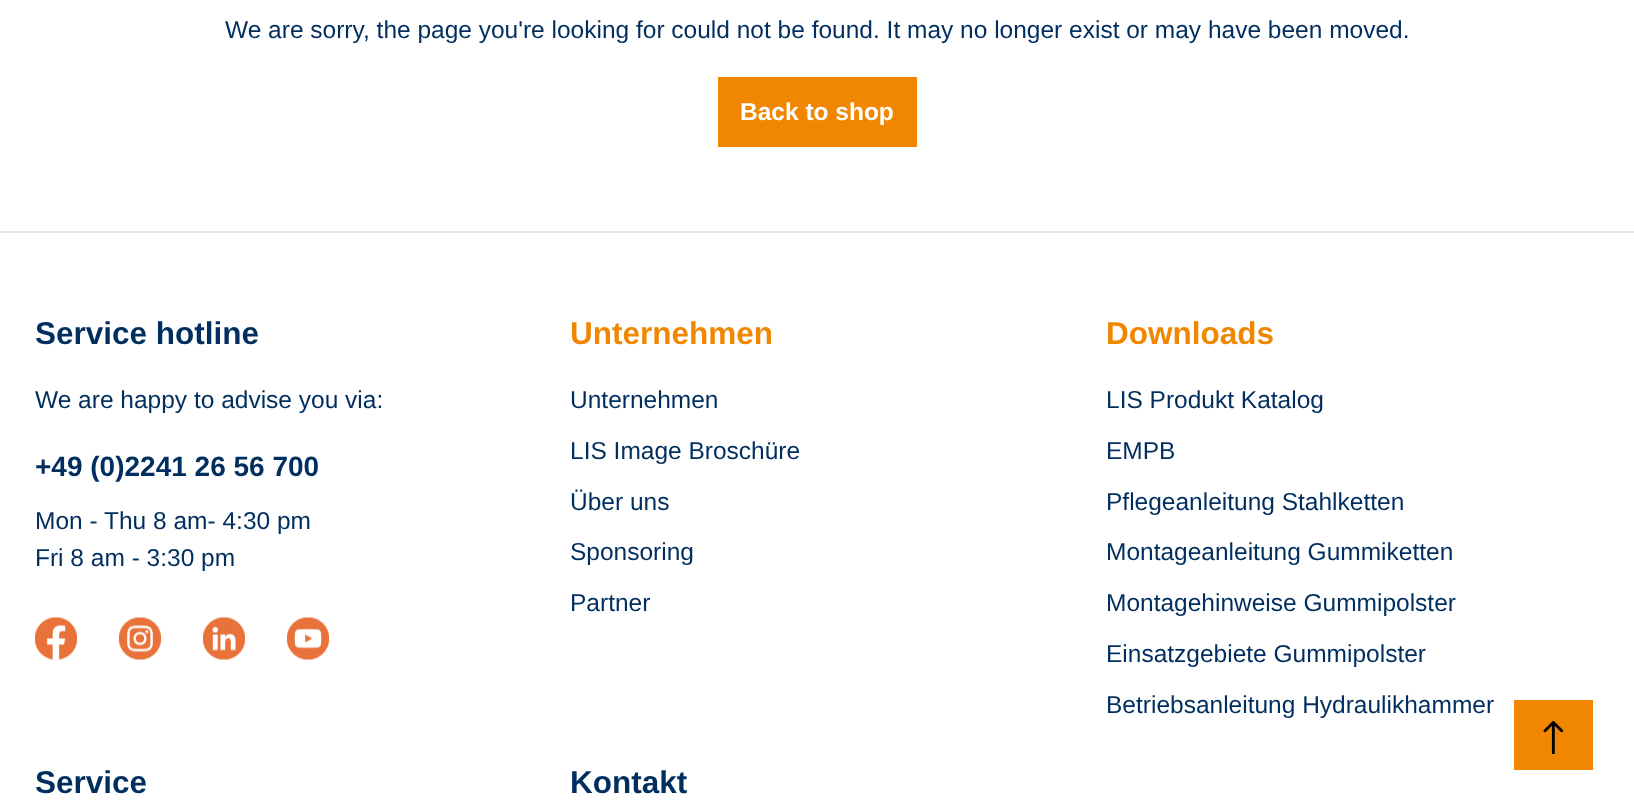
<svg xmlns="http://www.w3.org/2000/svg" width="1634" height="812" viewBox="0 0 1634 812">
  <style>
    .t1 { font: 24.5px Liberation Sans; fill: #002e5f; }
    .t2 { font: bold 24.5px Liberation Sans; fill: #fff; }
    .t3 { font: bold 31.5px Liberation Sans; fill: #002e5f; }
    .t4 { font: bold 28px Liberation Sans; fill: #002e5f; }
    .t5 { font: bold 31.5px Liberation Sans; fill: #f18700; }
  </style>
  <rect width="100%" height="100%" fill="#fff"/>
  <text x="225" y="38" class="t1">We are sorry, the page you're looking for could not be found. It may no longer exist or may have been moved.</text>
  <rect x="718" y="77" width="199" height="70" fill="#f18700"/>
  <text x="740" y="120" class="t2">Back to shop</text>
  <rect x="0" y="231" width="1634" height="2" fill="#e5e5e5"/>
  <text x="35" y="344" class="t3">Service hotline</text>
  <text x="35" y="408" class="t1">We are happy to advise you via:</text>
  <text x="35" y="476" class="t4">+49 (0)2241 26 56 700</text>
  <text x="35" y="529" class="t1">Mon - Thu 8 am- 4:30 pm</text>
  <text x="35" y="566" class="t1">Fri 8 am - 3:30 pm</text>
  <image x="35" y="617" width="42" height="43" href="images/1.png"/>
  <image x="119" y="617" width="42" height="43" href="images/2.png"/>
  <image x="203" y="617" width="42" height="43" href="images/3.png"/>
  <image x="287" y="617" width="42" height="43" href="images/4.png"/>
  <text x="570" y="344" class="t5">Unternehmen</text>
  <text x="570" y="408" class="t1">Unternehmen</text>
  <text x="570" y="459" class="t1">LIS Image Broschüre</text>
  <text x="570" y="510" class="t1">Über uns</text>
  <text x="570" y="560" class="t1">Sponsoring</text>
  <text x="570" y="611" class="t1">Partner</text>
  <text x="1106" y="344" class="t5">Downloads</text>
  <text x="1106" y="408" class="t1">LIS Produkt Katalog</text>
  <text x="1106" y="459" class="t1">EMPB</text>
  <text x="1106" y="510" class="t1">Pflegeanleitung Stahlketten</text>
  <text x="1106" y="560" class="t1">Montageanleitung Gummiketten</text>
  <text x="1106" y="611" class="t1">Montagehinweise Gummipolster</text>
  <text x="1106" y="662" class="t1">Einsatzgebiete Gummipolster</text>
  <text x="1106" y="713" class="t1">Betriebsanleitung Hydraulikhammer</text>
  <text x="35" y="793" class="t3">Service</text>
  <text x="570" y="793" class="t3">Kontakt</text>
  <rect x="1514" y="700" width="79" height="70" fill="#f18700"/>
  <image x="1543" y="721" width="21" height="33" href="images/5.png"/>
</svg>
